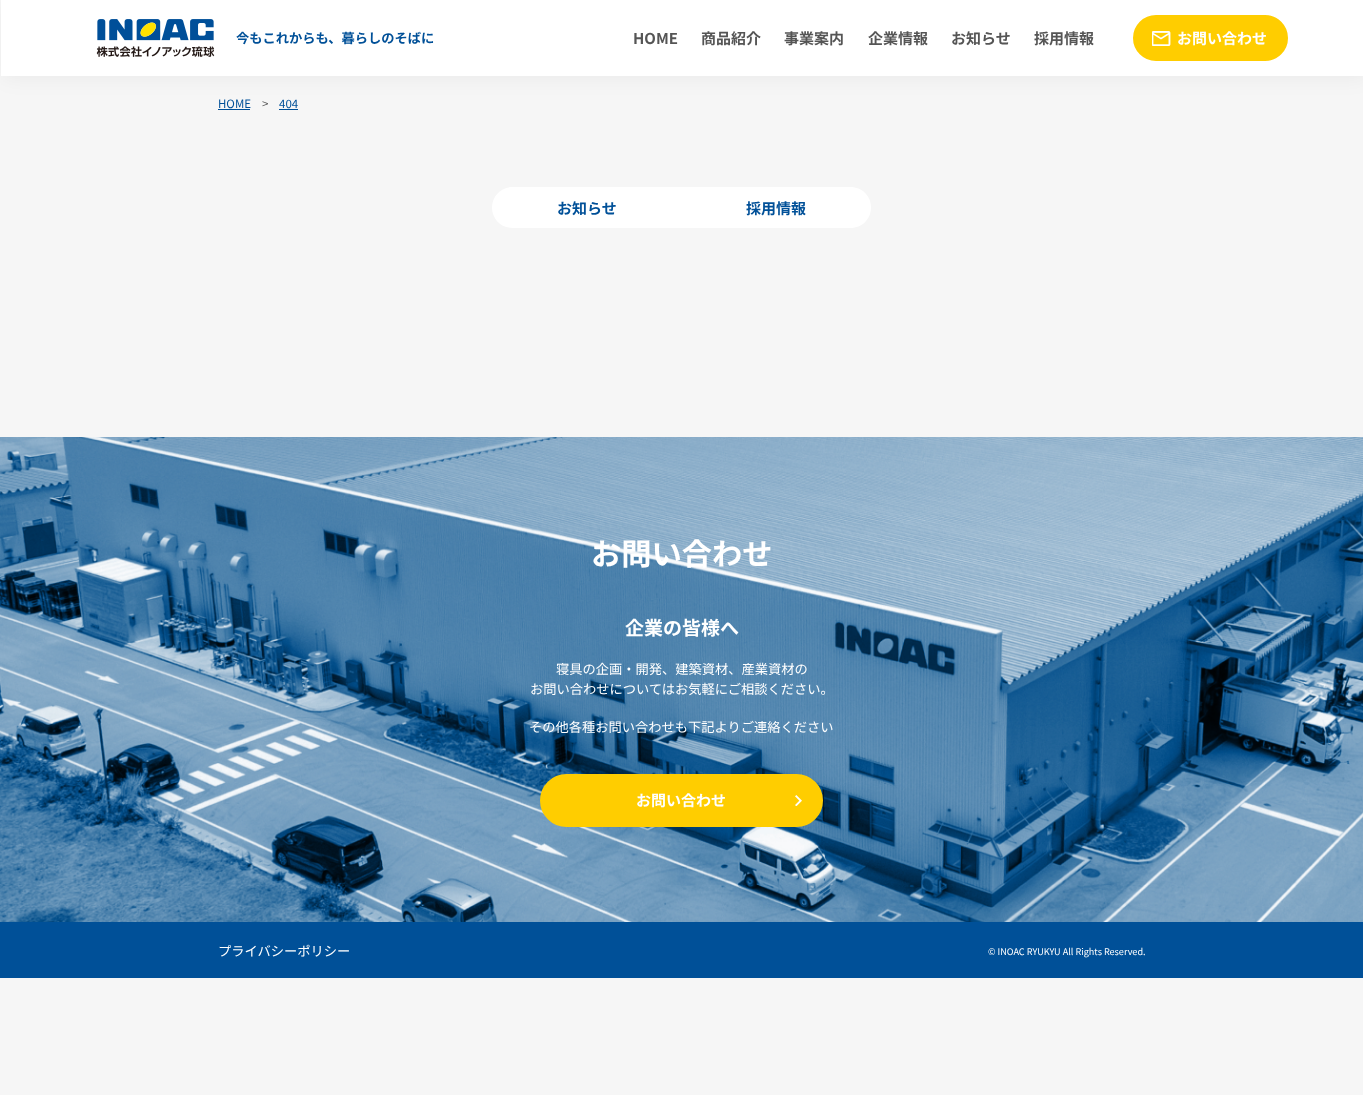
<svg xmlns="http://www.w3.org/2000/svg" width="1363" height="1095" viewBox="0 0 1363 1095">
  <style>
    .t1 { font: bold 13.25px Noto Sans JP; fill: #005098; }
    .t2 { font: bold 15px Noto Sans JP; fill: #555; }
    .t3 { font: bold 15px Noto Sans JP; fill: #fff; }
    .t4 { font: 11.5px Noto Sans JP; fill: #005098; }
    .t5 { font: 11.5px Noto Sans JP; fill: #555; }
    .t6 { font: bold 15px Noto Sans JP; fill: #005098; }
    .t7 { font: bold 30.25px Noto Sans JP; fill: #fff; }
    .t8 { font: bold 19px Noto Sans JP; fill: #fff; }
    .t9 { font: 13.25px Noto Sans JP; fill: #fff; }
    .t10 { font: 9.1px Noto Sans JP; fill: #fff; }
  </style>
  <rect width="100%" height="100%" fill="#f6f6f6"/>
  <rect x="3" y="2" width="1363" height="76" fill="#0000000d" filter="blur(10px)"/>
  <rect x="1" y="0" width="1362" height="76" fill="#fff"/>
  <image x="96" y="19" width="119" height="38" href="images/1.png"/>
  <text x="236" y="43" class="t1">今もこれからも、暮らしのそばに</text>
  <text x="633" y="44" class="t2">HOME</text>
  <text x="701" y="44" class="t2">商品紹介</text>
  <text x="784" y="44" class="t2">事業案内</text>
  <text x="868" y="44" class="t2">企業情報</text>
  <text x="951" y="44" class="t2">お知らせ</text>
  <text x="1034" y="44" class="t2">採用情報</text>
  <rect x="1134" y="16" width="153" height="44" rx="22" fill="#ffcd00" stroke="#ffcd00" stroke-width="2"/>
  <image x="1152" y="31" width="19" height="15" href="images/2.png"/>
  <text x="1177" y="44" class="t3">お問い合わせ</text>
  <text x="218" y="108" class="t4">HOME</text>
  <rect x="218" y="109" width="32" height="1" fill="#005098"/>
  <text x="262" y="108" class="t5">&gt;</text>
  <text x="279" y="108" class="t4">404</text>
  <rect x="279" y="109" width="19" height="1" fill="#005098"/>
  <path d="M512.5 187H682V228H512.5C501 228 492 219 492 207.5C492 196 501 187 512.5 187Z" fill="#fff"/>
  <text x="557" y="214" class="t6">お知らせ</text>
  <path d="M682 187H850.5C862 187 871 196 871 207.5C871 219 862 228 850.5 228H682Z" fill="#fff"/>
  <text x="746" y="214" class="t6">採用情報</text>
  <image x="0" y="437" width="1363" height="485" href="images/3.png"/>
  <text x="591" y="565" class="t7">お問い合わせ</text>
  <text x="625" y="635" class="t8">企業の皆様へ</text>
  <text x="556" y="674" class="t9">寝具の企画・開発、建築資材、産業資材の</text>
  <text x="530" y="694" class="t9">お問い合わせについてはお気軽にご相談ください。</text>
  <text x="529" y="732" class="t9">その他各種お問い合わせも下記よりご連絡ください</text>
  <rect x="541" y="775" width="281" height="51" rx="25.5" fill="#ffcd00" stroke="#ffcd00" stroke-width="2"/>
  <image x="795" y="795" width="7" height="11" href="images/4.png"/>
  <text x="636" y="806" class="t3">お問い合わせ</text>
  <rect x="0" y="922" width="1363" height="56" fill="#005098"/>
  <text x="218" y="956" class="t9">プライバシーポリシー</text>
  <text x="988" y="955" class="t10">© INOAC RYUKYU All Rights Reserved.</text>
</svg>
